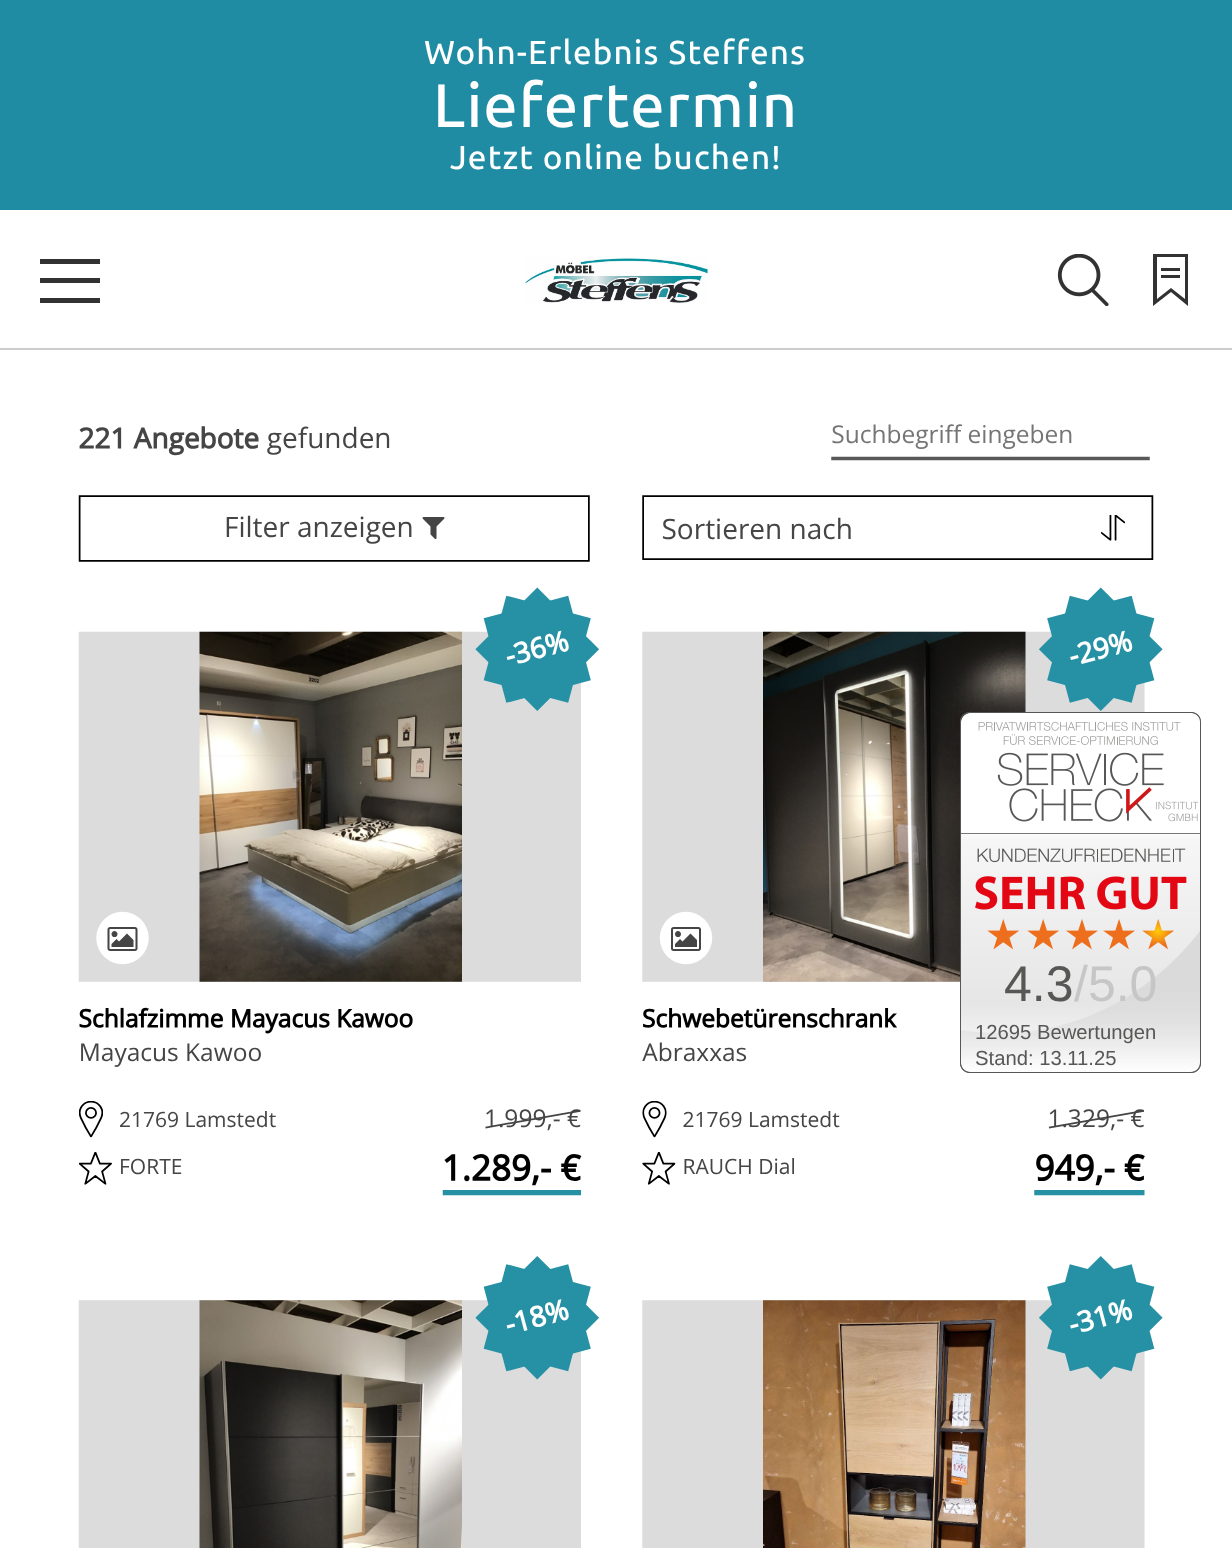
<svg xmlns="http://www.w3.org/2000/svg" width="1232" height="1548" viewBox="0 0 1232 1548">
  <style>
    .t1 { font: 500 33.25px Ubuntu; letter-spacing: 1.1px; fill: #fff; }
    .t2 { font: 500 61.25px Ubuntu; letter-spacing: 1.1px; fill: #fff; }
    .t3 { font: 50px Liberation Sans; fill: #575756; }
    .t4 { font: 50px Liberation Sans; fill: #c6c6c6; }
    .t5 { font: 20.25px Liberation Sans; fill: #575756; }
  </style>
  <rect width="100%" height="100%" fill="#fff"/>
  <rect x="0" y="0" width="1232" height="210" fill="#1f8ca3"/>
  <text x="424" y="64" class="t1">Wohn-Erlebnis Steffens</text>
  <text x="433" y="127" class="t2">Liefertermin</text>
  <text x="450" y="169" class="t1">Jetzt online buchen!</text>
  <rect x="0" y="348" width="1232" height="2" fill="#ccc"/>
  <rect x="40" y="278" width="60" height="5" fill="#323232"/>
  <rect x="40" y="259" width="60" height="5" fill="#323232"/>
  <rect x="40" y="298" width="60" height="5" fill="#323232"/>
  <image x="525" y="257" width="184" height="46" href="images/1.png"/>
  <image x="1057" y="254" width="52" height="52" href="images/2.png"/>
  <path d="M1157 257V299L1171 288L1185 299V257H1157M1153 254H1188V306L1171 292L1153 306Z" fill="#323232"/>
  <rect x="1161" y="268" width="19" height="3" fill="#323232"/>
  <rect x="1161" y="275" width="19" height="3" fill="#323232"/>
  <image x="78" y="424" width="1085" height="1124" href="images/3.png"/>
  <image x="960" y="712" width="241" height="361" href="images/4.png"/>
  <text x="1004" y="1001" class="t3">4.3</text>
  <text x="1074" y="1001" class="t4">/5.0</text>
  <text x="975" y="1039" class="t5">12695 Bewertungen</text>
  <text x="975" y="1065" class="t5">Stand: 13.11.25</text>
</svg>
